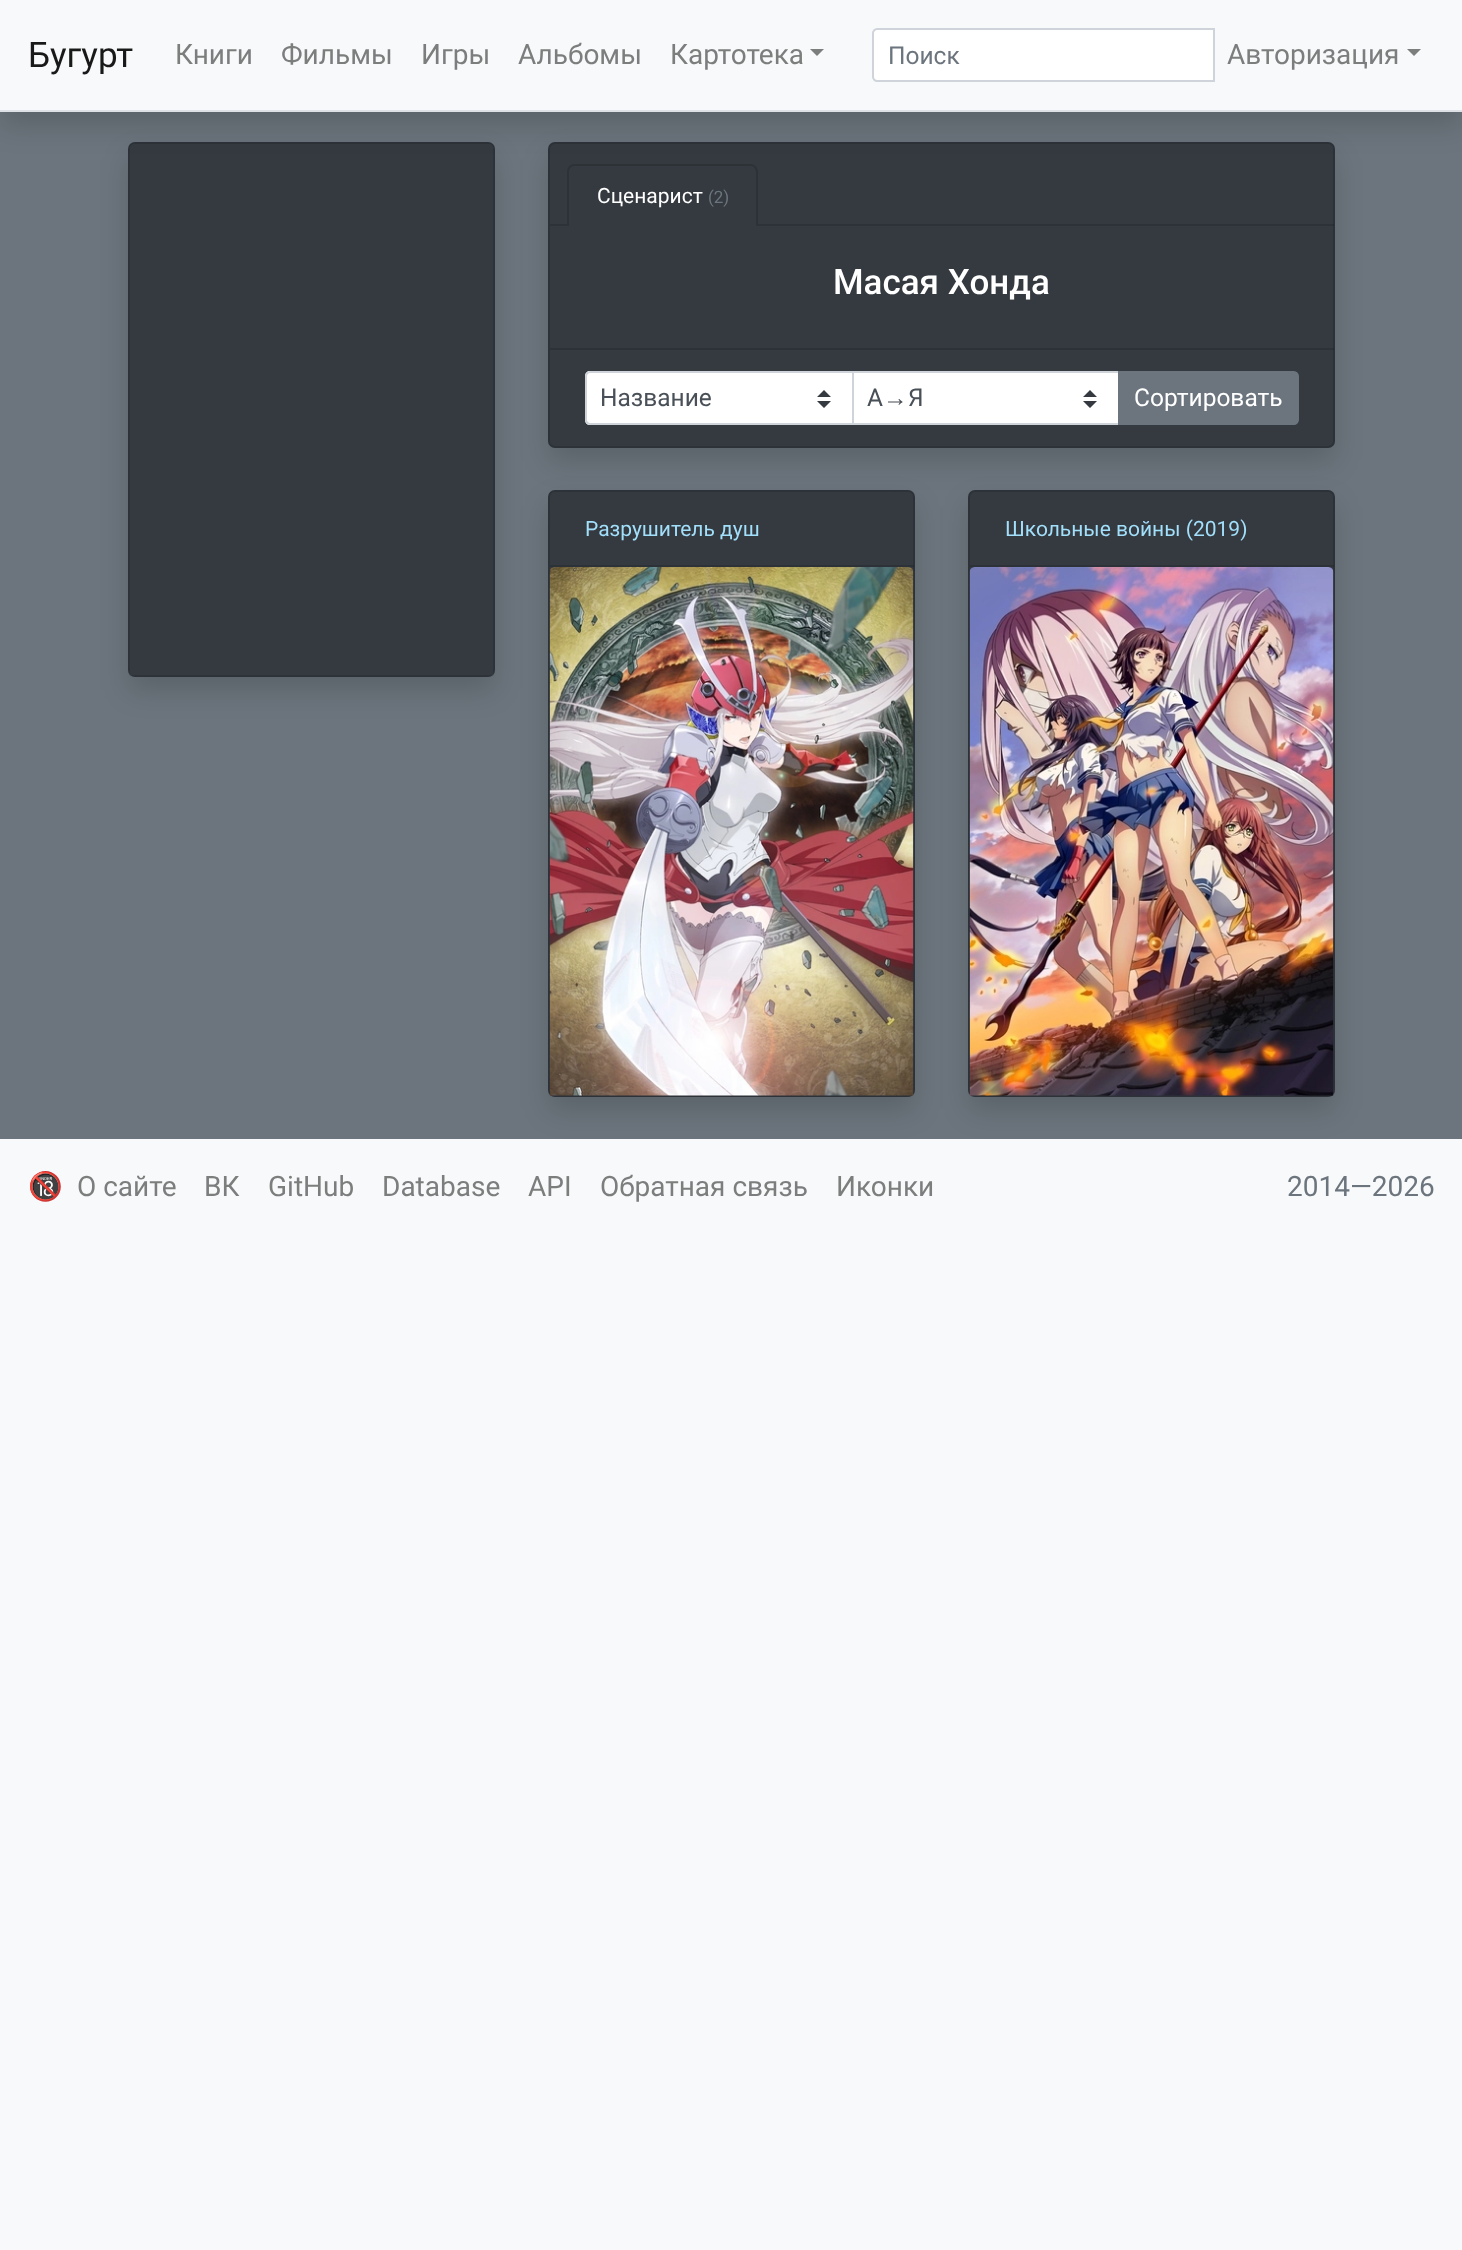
<svg xmlns="http://www.w3.org/2000/svg" width="1462" height="2250" viewBox="0 0 1462 2250">
  <style>
    .t1 { font: 35px Roboto; fill: #191919; }
    .t2 { font: 28px Roboto; fill: #7c7d7d; }
    .t3 { font: 24.5px Roboto; fill: #6c757d; }
    .t4 { font: 21px Roboto; fill: #fff; }
    .t5 { font: 17px Roboto; fill: #6c757d; }
    .t6 { font: 500 35px Roboto; fill: #fff; }
    .t7 { font: 24.5px Roboto; fill: #495057; }
    .t8 { font: 24.5px Liberation Sans; fill: #495057; }
    .t9 { font: 24.5px Roboto; fill: #fff; }
    .t10 { font: 21px Roboto; fill: #a2dffb; }
    .t11 { font: 28px Noto Color Emoji; fill: #6c757d; }
    .t12 { font: 28px Roboto; fill: #6c757d; }
  </style>
  <rect width="100%" height="100%" fill="#f8f9fa"/>
  <rect x="0" y="112" width="1462" height="1027" fill="#6c757d"/>
  <rect x="128" y="156" width="367" height="535" rx="7" fill="#00000026" filter="blur(14px)"/>
  <rect x="128" y="142" width="367" height="535" rx="7" fill="#343a40"/>
  <rect x="129" y="143" width="365" height="533" rx="6" fill="none" stroke="#0000001f" stroke-width="2"/>
  <image x="129" y="144" width="365" height="532" href="images/1.png"/>
  <rect x="548" y="156" width="787" height="306" rx="7" fill="#00000026" filter="blur(14px)"/>
  <rect x="548" y="142" width="787" height="306" rx="7" fill="#343a40"/>
  <rect x="549" y="143" width="785" height="304" rx="6" fill="none" stroke="#0000001f" stroke-width="2"/>
  <rect x="1333" y="144" width="1" height="1" fill="#00000008"/>
  <rect x="550" y="224" width="784" height="2" fill="#0000001f"/>
  <path d="M574 165H751C755 165 758 168 758 172V226H567V172C567 168 570 165 574 165Z" fill="#343a40"/>
  <path d="M574 164H751C755 164 758 168 758 172V226H567V172C567 168 570 164 574 164ZM574 166H751C754 166 756 169 756 172V226H569V172C569 169 571 166 574 166Z" fill="#2d3237" fill-rule="evenodd"/>
  <rect x="0" y="14" width="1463" height="112" fill="#00000026" filter="blur(14px)"/>
  <rect x="0" y="0" width="1462" height="110" fill="#f8f9fa"/>
  <rect x="0" y="110" width="1462" height="2" fill="#dee2e6"/>
  <text x="28" y="67" class="t1">Бугурт</text>
  <text x="175" y="64" class="t2">Книги</text>
  <text x="281" y="64" class="t2">Фильмы</text>
  <text x="421" y="64" class="t2">Игры</text>
  <text x="518" y="64" class="t2">Альбомы</text>
  <text x="670" y="64" class="t2">Картотека</text>
  <path d="M810 49H824L817 56Z" fill="#7c7d7d"/>
  <path d="M877 29H1214V81H877C875 81 873 79 873 77V33C873 31 875 29 877 29Z" fill="#fff" stroke="#ced4da" stroke-width="2"/>
  <text x="888" y="64" class="t3">Поиск</text>
  <text x="1227" y="64" class="t2">Авторизация</text>
  <path d="M1407 49H1421L1414 56Z" fill="#7c7d7d"/>
  <text x="597" y="203" class="t4">Сценарист</text>
  <text x="708" y="203" class="t5">(2)</text>
  <text x="833" y="294" class="t6">Масая Хонда</text>
  <rect x="1333" y="445" width="1" height="1" fill="#00000008"/>
  <rect x="550" y="348" width="784" height="2" fill="#0000001f"/>
  <path d="M590 371H854V425H590C587 425 585 423 585 420V376C585 373 587 371 590 371Z" fill="#fff"/>
  <path d="M824 390L817 397H831ZM824 408L817 401H831Z" fill="#343a40"/>
  <path d="M590 372H853V424H590C588 424 586 422 586 420V376C586 374 588 372 590 372Z" fill="none" stroke="#ced4da" stroke-width="2"/>
  <text x="600" y="406" class="t7">Название</text>
  <rect x="854" y="373" width="264" height="50" fill="#fff"/>
  <path d="M1090 390L1083 397H1097ZM1090 408L1083 401H1097Z" fill="#343a40"/>
  <rect x="853" y="372" width="266" height="52" fill="none" stroke="#ced4da" stroke-width="2"/>
  <text x="867" y="406" class="t7">А</text>
  <text x="883" y="406" class="t8">→</text>
  <text x="908" y="406" class="t7">Я</text>
  <path d="M1119 372H1294C1296 372 1298 374 1298 376V420C1298 422 1296 424 1294 424H1119Z" fill="#6c757d" stroke="#6c757d" stroke-width="2"/>
  <text x="1134" y="406" class="t9">Сортировать</text>
  <rect x="548" y="504" width="367" height="607" rx="7" fill="#00000026" filter="blur(14px)"/>
  <rect x="548" y="490" width="367" height="607" rx="7" fill="#343a40"/>
  <rect x="549" y="491" width="365" height="605" rx="6" fill="none" stroke="#0000001f" stroke-width="2"/>
  <rect x="913" y="492" width="1" height="1" fill="#00000008"/>
  <rect x="550" y="565" width="364" height="2" fill="#0000001f"/>
  <text x="585" y="536" class="t10">Разрушитель душ</text>
  <image x="549" y="567" width="365" height="529" href="images/2.png"/>
  <rect x="968" y="504" width="367" height="607" rx="7" fill="#00000026" filter="blur(14px)"/>
  <rect x="968" y="490" width="367" height="607" rx="7" fill="#343a40"/>
  <rect x="969" y="491" width="365" height="605" rx="6" fill="none" stroke="#0000001f" stroke-width="2"/>
  <rect x="1333" y="492" width="1" height="1" fill="#00000008"/>
  <rect x="970" y="565" width="364" height="2" fill="#0000001f"/>
  <text x="1005" y="536" class="t10">Школьные войны (2019)</text>
  <image x="969" y="567" width="365" height="529" href="images/3.png"/>
  <text x="28" y="1196" class="t11">🔞</text>
  <text x="77" y="1196" class="t2">О сайте</text>
  <text x="204" y="1196" class="t2">ВК</text>
  <text x="268" y="1196" class="t2">GitHub</text>
  <text x="382" y="1196" class="t2">Database</text>
  <text x="528" y="1196" class="t2">API</text>
  <text x="600" y="1196" class="t2">Обратная связь</text>
  <text x="836" y="1196" class="t2">Иконки</text>
  <text x="1287" y="1196" class="t12">2014—2026</text>
</svg>
